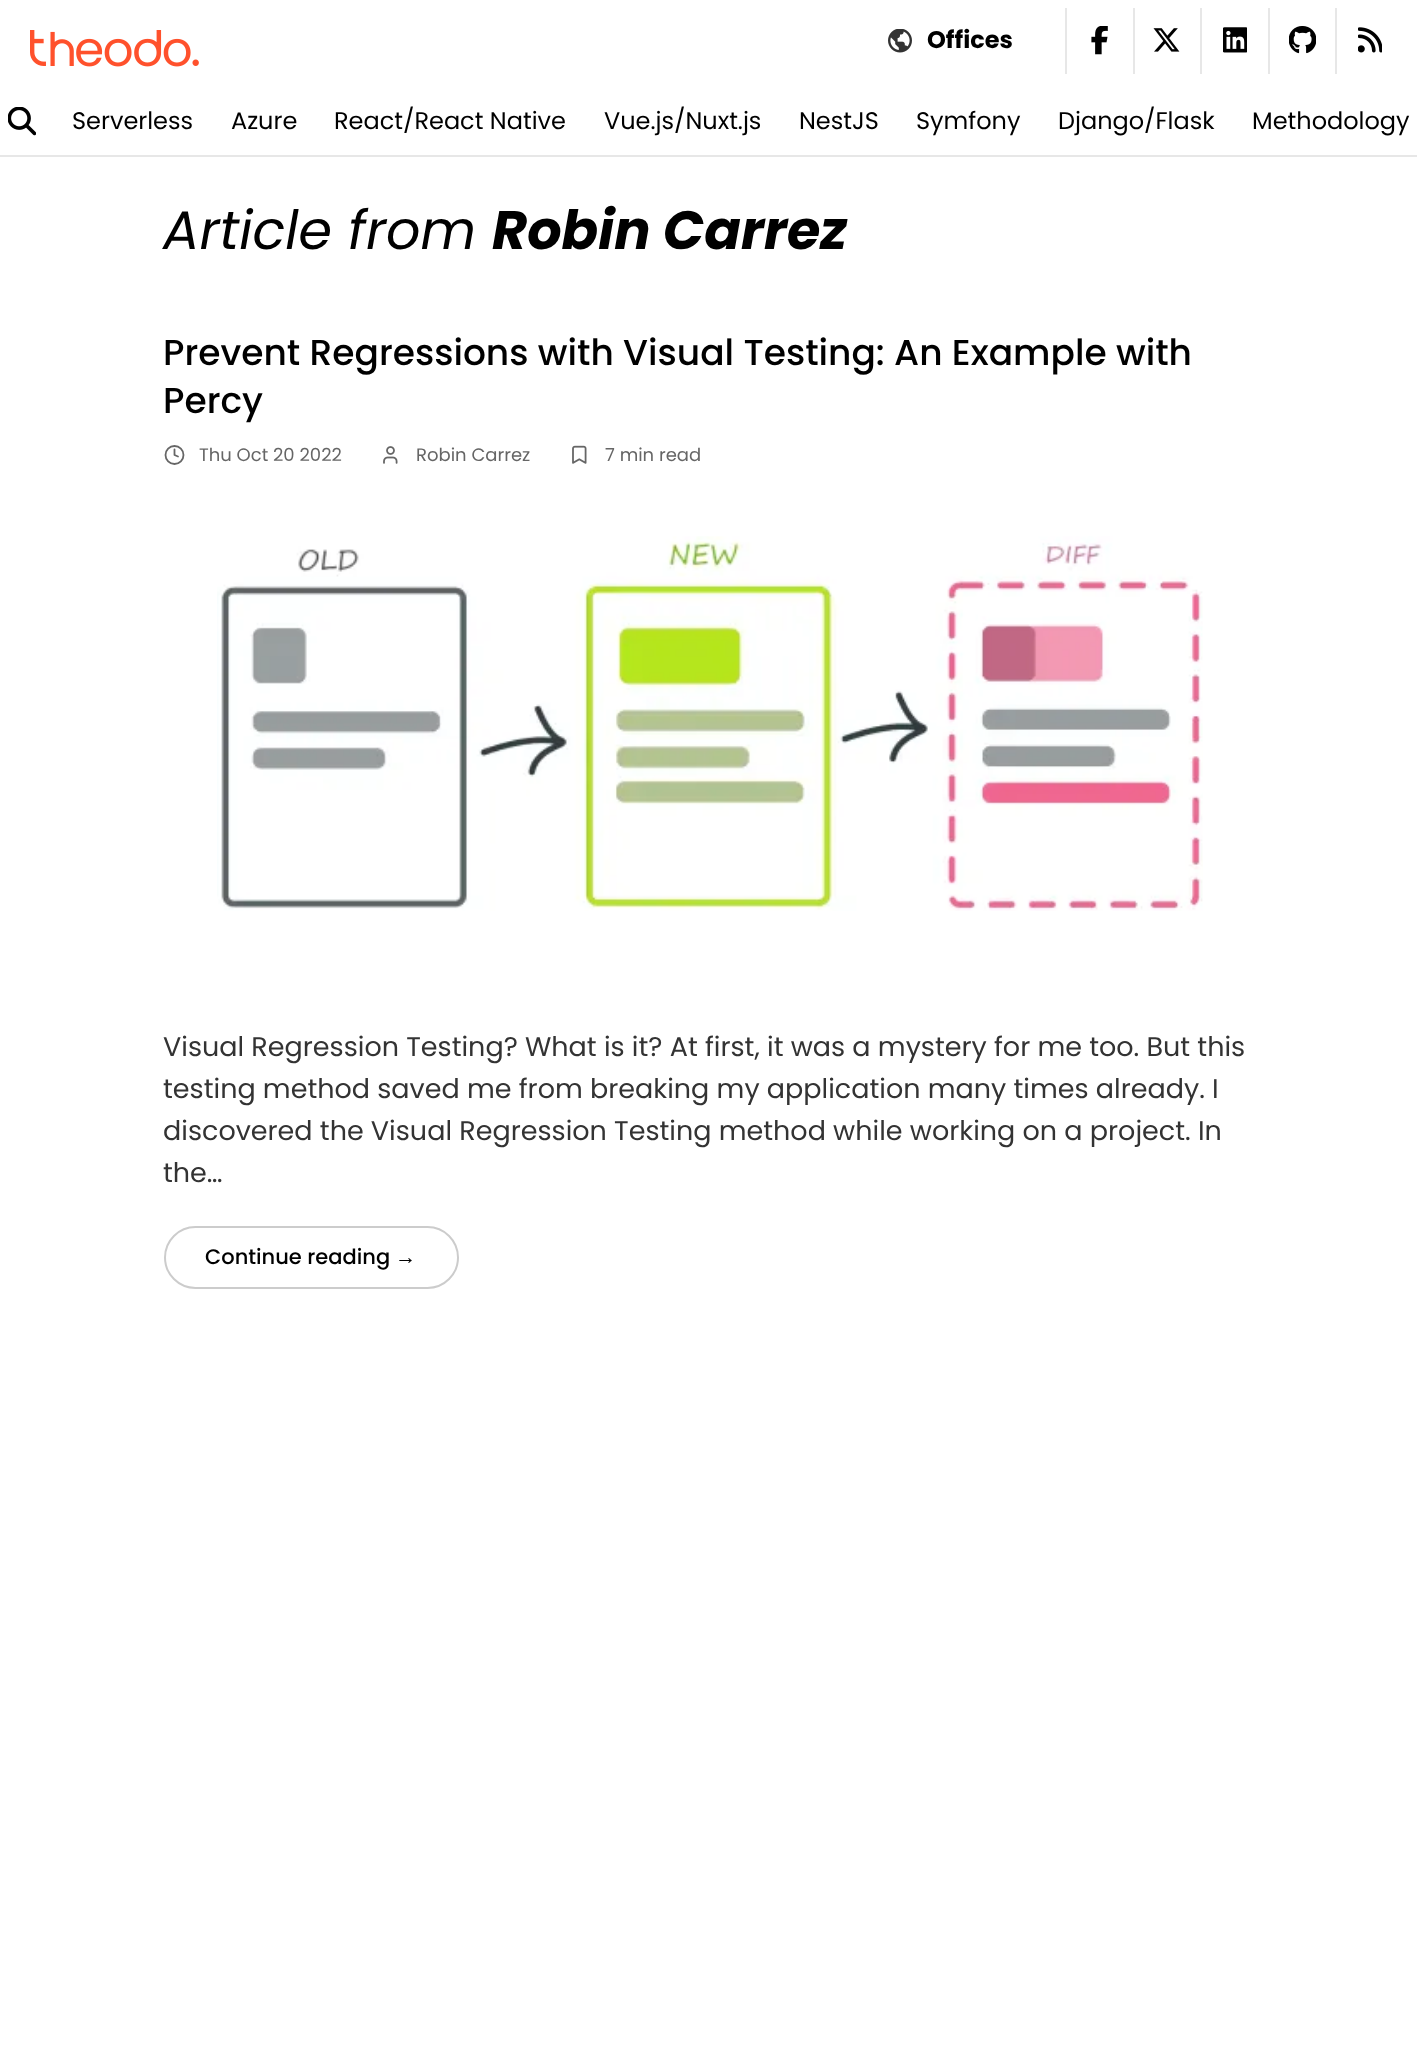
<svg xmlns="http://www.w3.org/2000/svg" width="1417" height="2063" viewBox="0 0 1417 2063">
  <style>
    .t1 { font: bold 24px Poppins; fill: #000; }
    .t2 { font: 24px Poppins; fill: #000; }
    .t3 { font: italic 54px Poppins; fill: #000; }
    .t4 { font: italic bold 54px Poppins; fill: #000; }
    .t5 { font: 500 36px Poppins; fill: #000; }
    .t6 { font: 18px Poppins; fill: #666; }
    .t7 { font: 27px Poppins; fill: #333; }
    .t8 { font: 500 21px Poppins; fill: #000; }
    .t9 { font: 21px Liberation Serif; fill: #000; }
  </style>
  <rect width="100%" height="100%" fill="#fff"/>
  <image x="30" y="30" width="169" height="37" href="images/1.png"/>
  <image x="888" y="29" width="24" height="24" href="images/2.png"/>
  <text x="927" y="48" class="t1">Offices</text>
  <rect x="1065" y="8" width="2" height="66" fill="#e7e7e7"/>
  <image x="1091" y="26" width="17" height="29" href="images/3.png"/>
  <rect x="1133" y="8" width="2" height="66" fill="#e7e7e7"/>
  <image x="1153" y="28" width="27" height="24" href="images/4.png"/>
  <rect x="1200" y="8" width="2" height="66" fill="#e7e7e7"/>
  <image x="1223" y="27" width="24" height="26" href="images/5.png"/>
  <rect x="1268" y="8" width="2" height="66" fill="#e7e7e7"/>
  <image x="1289" y="26" width="27" height="28" href="images/6.png"/>
  <rect x="1335" y="8" width="2" height="66" fill="#e7e7e7"/>
  <image x="1358" y="27" width="24" height="26" href="images/7.png"/>
  <rect x="0" y="155" width="1417" height="2" fill="#e7e7e7"/>
  <image x="8" y="107" width="28" height="29" href="images/8.png"/>
  <text x="72" y="129" class="t2">Serverless</text>
  <text x="231" y="129" class="t2">Azure</text>
  <text x="334" y="129" class="t2">React/React Native</text>
  <text x="604" y="129" class="t2">Vue.js/Nuxt.js</text>
  <text x="799" y="129" class="t2">NestJS</text>
  <text x="916" y="129" class="t2">Symfony</text>
  <text x="1058" y="129" class="t2">Django/Flask</text>
  <text x="1252" y="129" class="t2">Methodology</text>
  <text x="163" y="249" class="t3">Article from</text>
  <text x="492" y="249" class="t4">Robin Carrez</text>
  <text x="163" y="365" class="t5">Prevent Regressions with Visual Testing: An Example with</text>
  <text x="163" y="413" class="t5">Percy</text>
  <path d="M174.5 449.5V455L178 456.5" fill="none" stroke="#666" stroke-width="1.8" stroke-linecap="round" stroke-linejoin="round"/>
  <circle cx="174.5" cy="455" r="9" fill="none" stroke="#666" stroke-width="1.8"/>
  <text x="199" y="461" class="t6">Thu Oct 20 2022</text>
  <image x="383" y="446" width="15" height="18" href="images/9.png"/>
  <text x="416" y="461" class="t6">Robin Carrez</text>
  <image x="572" y="445" width="15" height="19" href="images/10.png"/>
  <text x="605" y="461" class="t6">7 min read</text>
  <image x="217" y="536" width="986" height="375" href="images/11.png"/>
  <text x="163" y="1056" class="t7">Visual Regression Testing? What is it? At first, it was a mystery for me too. But this</text>
  <text x="163" y="1098" class="t7">testing method saved me from breaking my application many times already. I</text>
  <text x="163" y="1140" class="t7">discovered the Visual Regression Testing method while working on a project. In</text>
  <text x="163" y="1182" class="t7">the…</text>
  <rect x="165" y="1227" width="293" height="61" rx="30.5" fill="none" stroke="#ccc" stroke-width="2"/>
  <text x="205" y="1264" class="t8">Continue reading</text>
  <text x="395" y="1264" class="t9">→</text>
</svg>
